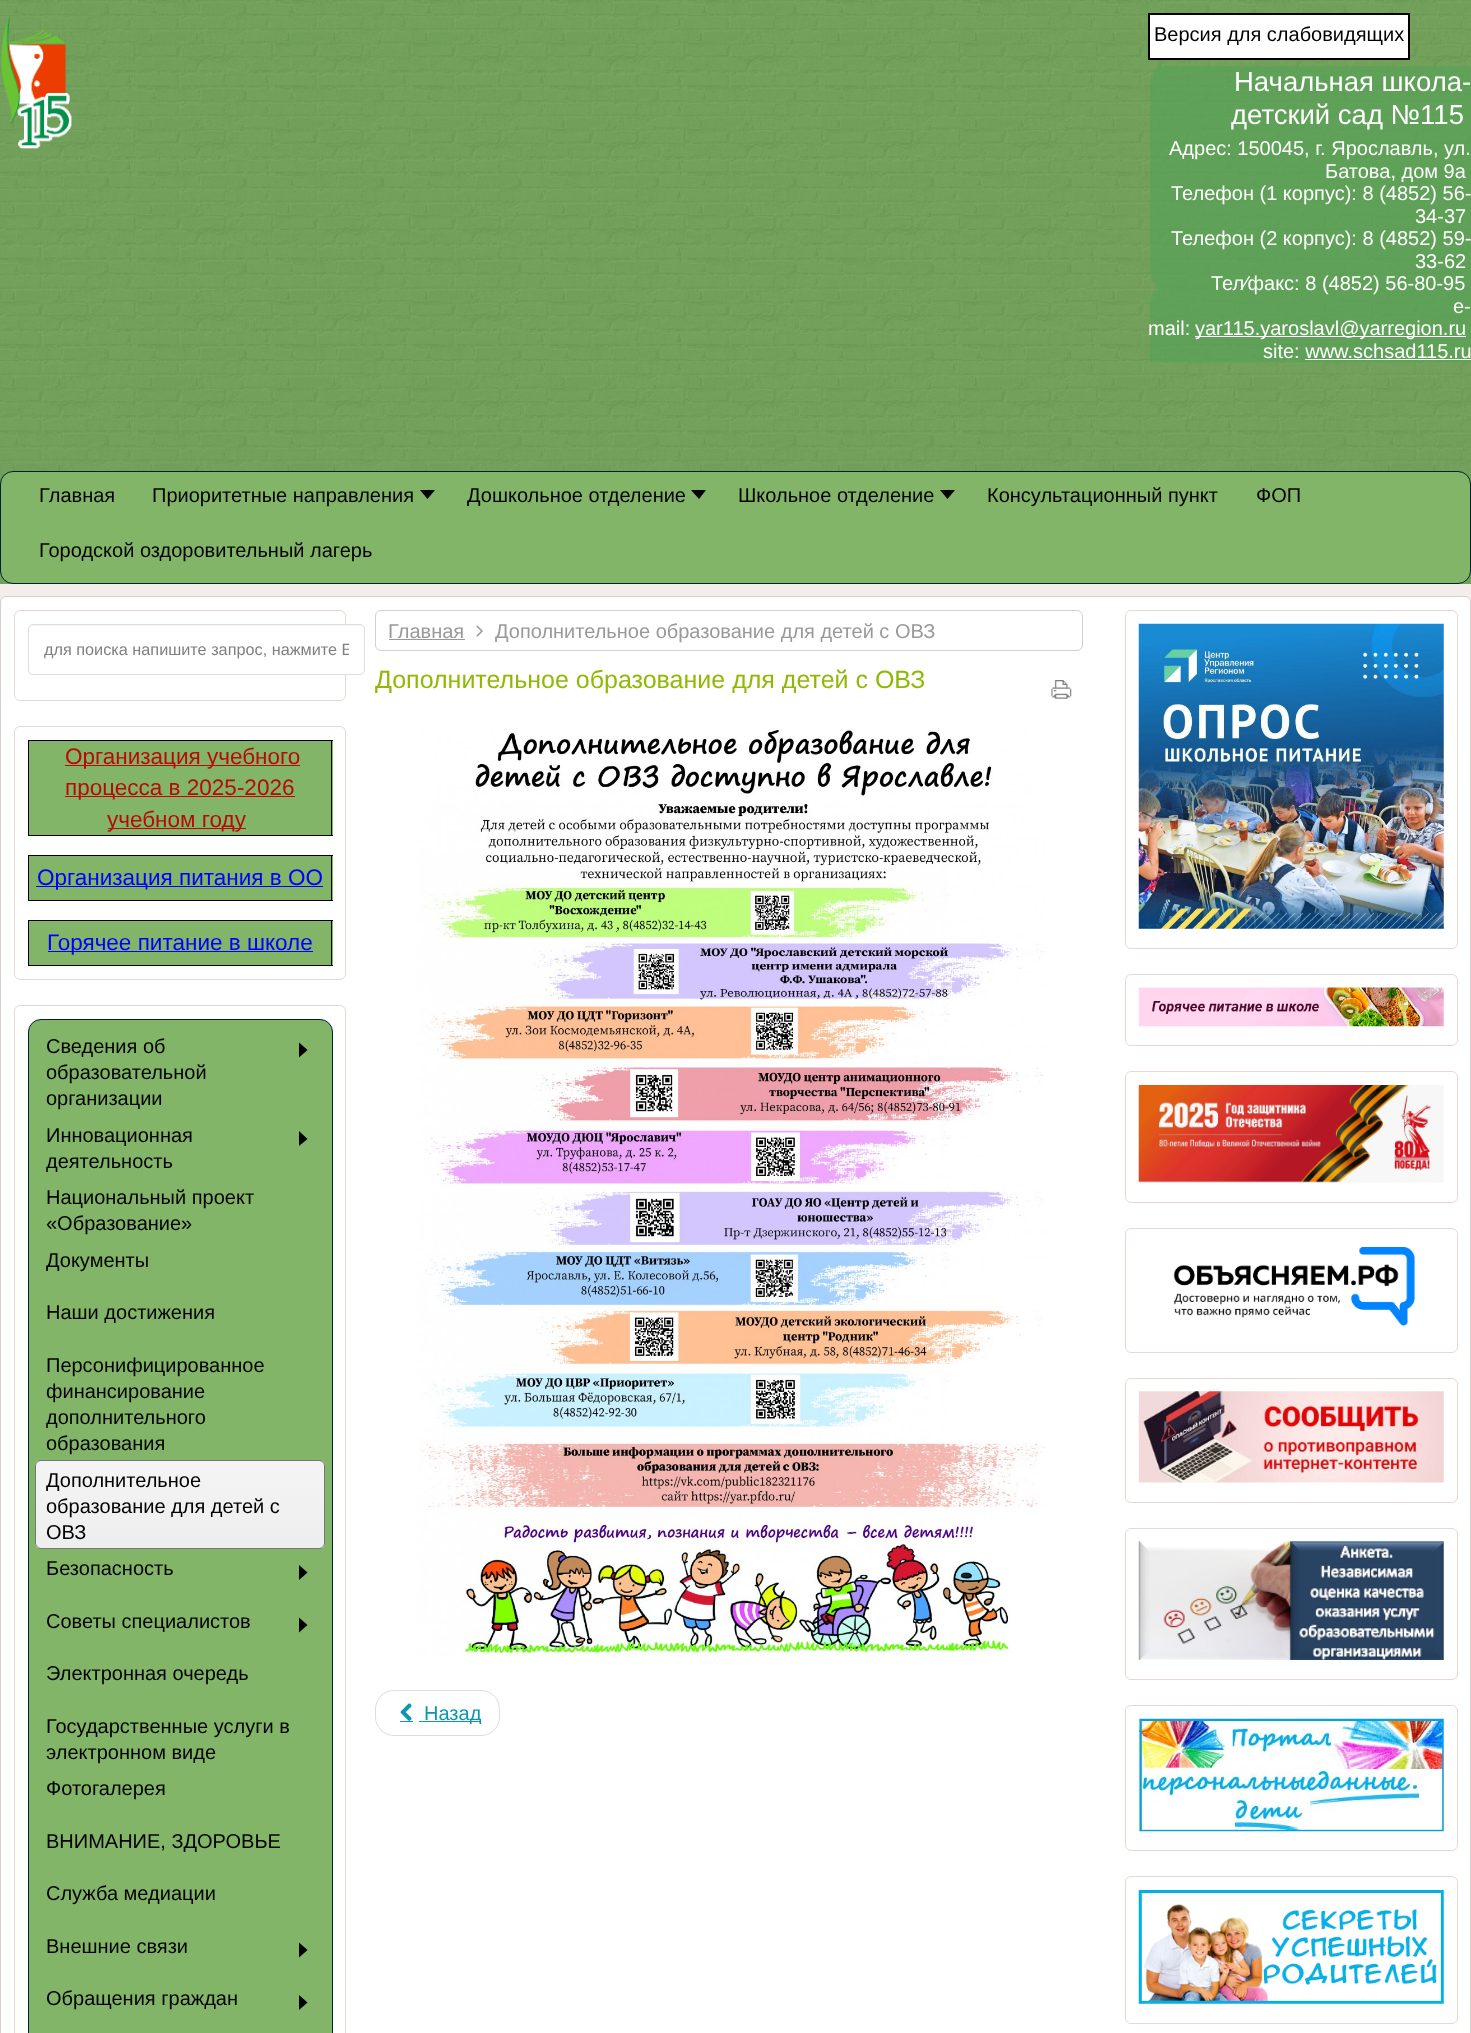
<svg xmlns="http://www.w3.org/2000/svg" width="1471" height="2033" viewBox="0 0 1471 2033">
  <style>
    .t1 { font: 20px Liberation Sans; fill: #000; }
    .t2 { font: 27.5px Liberation Sans; fill: #fff; }
    .t3 { font: 20px Liberation Sans; fill: #fff; }
    .t4 { font: 16.25px Liberation Sans; fill: #808080; }
    .t5 { font: 22.5px Liberation Sans; fill: #b90a0a; }
    .t6 { font: 22.5px Liberation Sans; fill: #00f; }
    .t7 { font: 20px Liberation Sans; fill: #999; }
    .t8 { font: 25px Liberation Sans; fill: #90b804; }
    .t9 { font: 20px Liberation Sans; fill: #0c96b1; }
  </style>
  <defs>
    <clipPath id="clip1"><rect x="44" y="640" width="305" height="19"/></clipPath>
    <clipPath id="clip2"><rect x="35" y="1460" width="290" height="89" rx="6"/></clipPath>
    <linearGradient id="g1" gradientUnits="userSpaceOnUse" x1="36" y1="1461" x2="36" y2="1548"><stop offset="0" stop-color="#f4f4f4"/><stop offset="1" stop-color="#eee"/></linearGradient>
  </defs>
  <rect width="100%" height="100%" fill="#fff"/>
  <image x="0" y="0" width="1471" height="584" href="images/1.png"/>
  <image x="1" y="16" width="71" height="133" href="images/2.png"/>
  <rect x="1149.5" y="14.5" width="259" height="44" fill="none" stroke="#000" stroke-width="3"/>
  <rect x="1150" y="15" width="258" height="43" fill="#fff"/>
  <text x="1154" y="41" class="t1">Версия для слабовидящих</text>
  <image x="1150" y="66" width="321" height="297" href="images/3.png"/>
  <text x="1234" y="91" class="t2">Начальная школа-</text>
  <text x="1231" y="124" class="t2">детский сад №115</text>
  <text x="1169" y="155" class="t3">Адрес: 150045, г. Ярославль, ул.</text>
  <text x="1325" y="178" class="t3">Батова, дом 9а</text>
  <text x="1171" y="200" class="t3">Телефон (1 корпус): 8 (4852) 56-</text>
  <text x="1415" y="223" class="t3">34-37</text>
  <text x="1171" y="245" class="t3">Телефон (2 корпус): 8 (4852) 59-</text>
  <text x="1415" y="268" class="t3">33-62</text>
  <text x="1211" y="290" class="t3">Тел⁄факс: 8 (4852) 56-80-95</text>
  <text x="1453" y="313" class="t3">e-</text>
  <text x="1148" y="335" class="t3">mail:</text>
  <rect x="1195" y="336" width="271" height="1" fill="#fff"/>
  <text x="1195" y="335" class="t3">yar115.yaroslavl@yarregion.ru</text>
  <text x="1263" y="358" class="t3">site: www.schsad115.ru</text>
  <rect x="1305" y="359" width="166" height="1" fill="#fff"/>
  <rect x="0.5" y="471.5" width="1470" height="112" rx="12.5" fill="#82b568" stroke="#002232"/>
  <text x="39" y="502" class="t1">Главная</text>
  <text x="152" y="502" class="t1">Приоритетные направления</text>
  <path d="M420 490H435L427.5 499Z" fill="#000"/>
  <text x="467" y="502" class="t1">Дошкольное отделение</text>
  <path d="M691 490H706L699 499Z" fill="#000"/>
  <text x="738" y="502" class="t1">Школьное отделение</text>
  <path d="M940 490H955L947.5 499Z" fill="#000"/>
  <text x="987" y="502" class="t1">Консультационный пункт</text>
  <text x="1256" y="502" class="t1">ФОП</text>
  <text x="39" y="557" class="t1">Городской оздоровительный лагерь</text>
  <rect x="0" y="584" width="1471" height="18" fill="#f3eeeb"/>
  <rect x="0.5" y="596.5" width="1470" height="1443" rx="5.5" fill="#fff" stroke="#d4cfcc"/>
  <rect x="14.5" y="610.5" width="331" height="90" rx="5.5" fill="none" stroke="#e5dad3"/>
  <rect x="28" y="624" width="337" height="51" rx="5" fill="#fff"/>
  <path d="M32 626H360C362 626 364 628 364 630C364 627 363 625 360 625H33C30 625 29 627 29 630C29 628 30 626 32 626Z" fill="#f7f7f7"/>
  <rect x="28.5" y="624.5" width="336" height="50" rx="4.5" fill="none" stroke="#ddd"/>
  <g clip-path="url(#clip1)">
    <text x="44" y="655" class="t4">для поиска напишите запрос, нажмите E</text>
  </g>
  <rect x="14.5" y="726.5" width="331" height="253" rx="5.5" fill="none" stroke="#e5dad3"/>
  <rect x="29" y="741" width="304" height="94" fill="#82b568"/>
  <rect x="28" y="740" width="305" height="1" fill="#000"/>
  <rect x="331" y="740" width="1" height="96" fill="#000"/>
  <rect x="28" y="835" width="305" height="1" fill="#000"/>
  <rect x="28" y="740" width="1" height="96" fill="#000"/>
  <rect x="65" y="765" width="235" height="1" fill="#b90a0a"/>
  <text x="65" y="764" class="t5">Организация учебного</text>
  <rect x="65" y="796" width="230" height="1" fill="#b90a0a"/>
  <text x="65" y="795" class="t5">процесса в 2025-2026</text>
  <rect x="108" y="828" width="138" height="1" fill="#b90a0a"/>
  <text x="107" y="827" class="t5">учебном году</text>
  <rect x="29" y="856" width="304" height="44" fill="#82b568"/>
  <rect x="28" y="855" width="305" height="1" fill="#000"/>
  <rect x="331" y="855" width="1" height="46" fill="#000"/>
  <rect x="28" y="900" width="305" height="1" fill="#000"/>
  <rect x="28" y="855" width="1" height="46" fill="#000"/>
  <rect x="36" y="886" width="287" height="1" fill="#00f"/>
  <text x="37" y="885" class="t6">Организация питания в ОО</text>
  <rect x="29" y="921" width="304" height="44" fill="#82b568"/>
  <rect x="28" y="920" width="305" height="1" fill="#000"/>
  <rect x="331" y="920" width="1" height="46" fill="#000"/>
  <rect x="28" y="965" width="305" height="1" fill="#000"/>
  <rect x="28" y="920" width="1" height="46" fill="#000"/>
  <rect x="48" y="951" width="265" height="1" fill="#00f"/>
  <text x="47" y="950" class="t6">Горячее питание в школе</text>
  <rect x="14.5" y="1005.5" width="331" height="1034" rx="5.5" fill="none" stroke="#e5dad3"/>
  <rect x="28.5" y="1019.5" width="304" height="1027" rx="12.5" fill="#82b568" stroke="#002232"/>
  <text x="46" y="1053" class="t1">Сведения об</text>
  <text x="46" y="1079" class="t1">образовательной</text>
  <text x="46" y="1105" class="t1">организации</text>
  <path d="M299 1057.5V1042.5L307.5 1050Z" fill="#000"/>
  <text x="46" y="1142" class="t1">Инновационная</text>
  <text x="46" y="1168" class="t1">деятельность</text>
  <path d="M299 1146V1131L307.5 1139Z" fill="#000"/>
  <text x="46" y="1204" class="t1">Национальный проект</text>
  <text x="46" y="1230" class="t1">«Образование»</text>
  <text x="46" y="1267" class="t1">Документы</text>
  <text x="46" y="1319" class="t1">Наши достижения</text>
  <text x="46" y="1372" class="t1">Персонифицированное</text>
  <text x="46" y="1398" class="t1">финансирование</text>
  <text x="46" y="1424" class="t1">дополнительного</text>
  <text x="46" y="1450" class="t1">образования</text>
  <g clip-path="url(#clip2)">
    <rect x="35" y="1461" width="290" height="87" fill="url(#g1)"/>
  </g>
  <rect x="35.5" y="1460.5" width="289" height="88" rx="5.5" fill="none" stroke="#777"/>
  <text x="46" y="1487" class="t1">Дополнительное</text>
  <text x="46" y="1513" class="t1">образование для детей с</text>
  <text x="46" y="1539" class="t1">ОВЗ</text>
  <text x="46" y="1575" class="t1">Безопасность</text>
  <path d="M299 1580V1565L307.5 1572.5Z" fill="#000"/>
  <text x="46" y="1628" class="t1">Советы специалистов</text>
  <path d="M299 1632.5V1617.5L307.5 1625Z" fill="#000"/>
  <text x="46" y="1680" class="t1">Электронная очередь</text>
  <text x="46" y="1733" class="t1">Государственные услуги в</text>
  <text x="46" y="1759" class="t1">электронном виде</text>
  <text x="46" y="1795" class="t1">Фотогалерея</text>
  <text x="46" y="1848" class="t1">ВНИМАНИЕ, ЗДОРОВЬЕ</text>
  <text x="46" y="1900" class="t1">Служба медиации</text>
  <text x="46" y="1953" class="t1">Внешние связи</text>
  <path d="M299 1957.5V1942.5L307.5 1950Z" fill="#000"/>
  <text x="46" y="2005" class="t1">Обращения граждан</text>
  <path d="M299 2010V1995L307.5 2002.5Z" fill="#000"/>
  <rect x="375.5" y="610.5" width="707" height="40" rx="5.5" fill="none" stroke="#d4cfcc"/>
  <text x="388" y="638" class="t7">Главная</text>
  <rect x="389" y="639" width="76" height="1" fill="#999"/>
  <image x="476" y="625" width="7" height="12" href="images/4.png"/>
  <text x="495" y="638" class="t7">Дополнительное образование для детей с ОВЗ</text>
  <text x="375" y="688" class="t8">Дополнительное образование для детей с ОВЗ</text>
  <image x="1051" y="680" width="21" height="19" href="images/5.png"/>
  <image x="417" y="727" width="630" height="929" href="images/6.png"/>
  <rect x="375.5" y="1690.5" width="124" height="45" rx="18.5" fill="none" stroke="#ddd"/>
  <rect x="400" y="1721" width="13" height="1" fill="#0c96b1"/>
  <image x="400" y="1703" width="12" height="18" href="images/7.png"/>
  <rect x="419" y="1721" width="62" height="1" fill="#0c96b1"/>
  <text x="424" y="1720" class="t9">Назад</text>
  <rect x="1125.5" y="610.5" width="332" height="338" rx="5.5" fill="none" stroke="#e5dad3"/>
  <image x="1138" y="623" width="306" height="306" href="images/8.png"/>
  <rect x="1125.5" y="974.5" width="332" height="71" rx="5.5" fill="none" stroke="#e5dad3"/>
  <image x="1138" y="987" width="306" height="40" href="images/9.png"/>
  <rect x="1125.5" y="1071.5" width="332" height="131" rx="5.5" fill="none" stroke="#e5dad3"/>
  <image x="1138" y="1085" width="306" height="98" href="images/10.png"/>
  <rect x="1125.5" y="1228.5" width="332" height="124" rx="5.5" fill="none" stroke="#e5dad3"/>
  <image x="1173" y="1247" width="242" height="79" href="images/11.png"/>
  <rect x="1125.5" y="1378.5" width="332" height="124" rx="5.5" fill="none" stroke="#e5dad3"/>
  <image x="1138" y="1391" width="306" height="92" href="images/12.png"/>
  <rect x="1125.5" y="1528.5" width="332" height="151" rx="5.5" fill="none" stroke="#e5dad3"/>
  <image x="1138" y="1541" width="306" height="119" href="images/13.png"/>
  <rect x="1125.5" y="1705.5" width="332" height="145" rx="5.5" fill="none" stroke="#e5dad3"/>
  <image x="1138" y="1718" width="306" height="114" href="images/14.png"/>
  <rect x="1125.5" y="1876.5" width="332" height="147" rx="5.5" fill="none" stroke="#e5dad3"/>
  <image x="1138" y="1890" width="306" height="114" href="images/15.png"/>
</svg>
